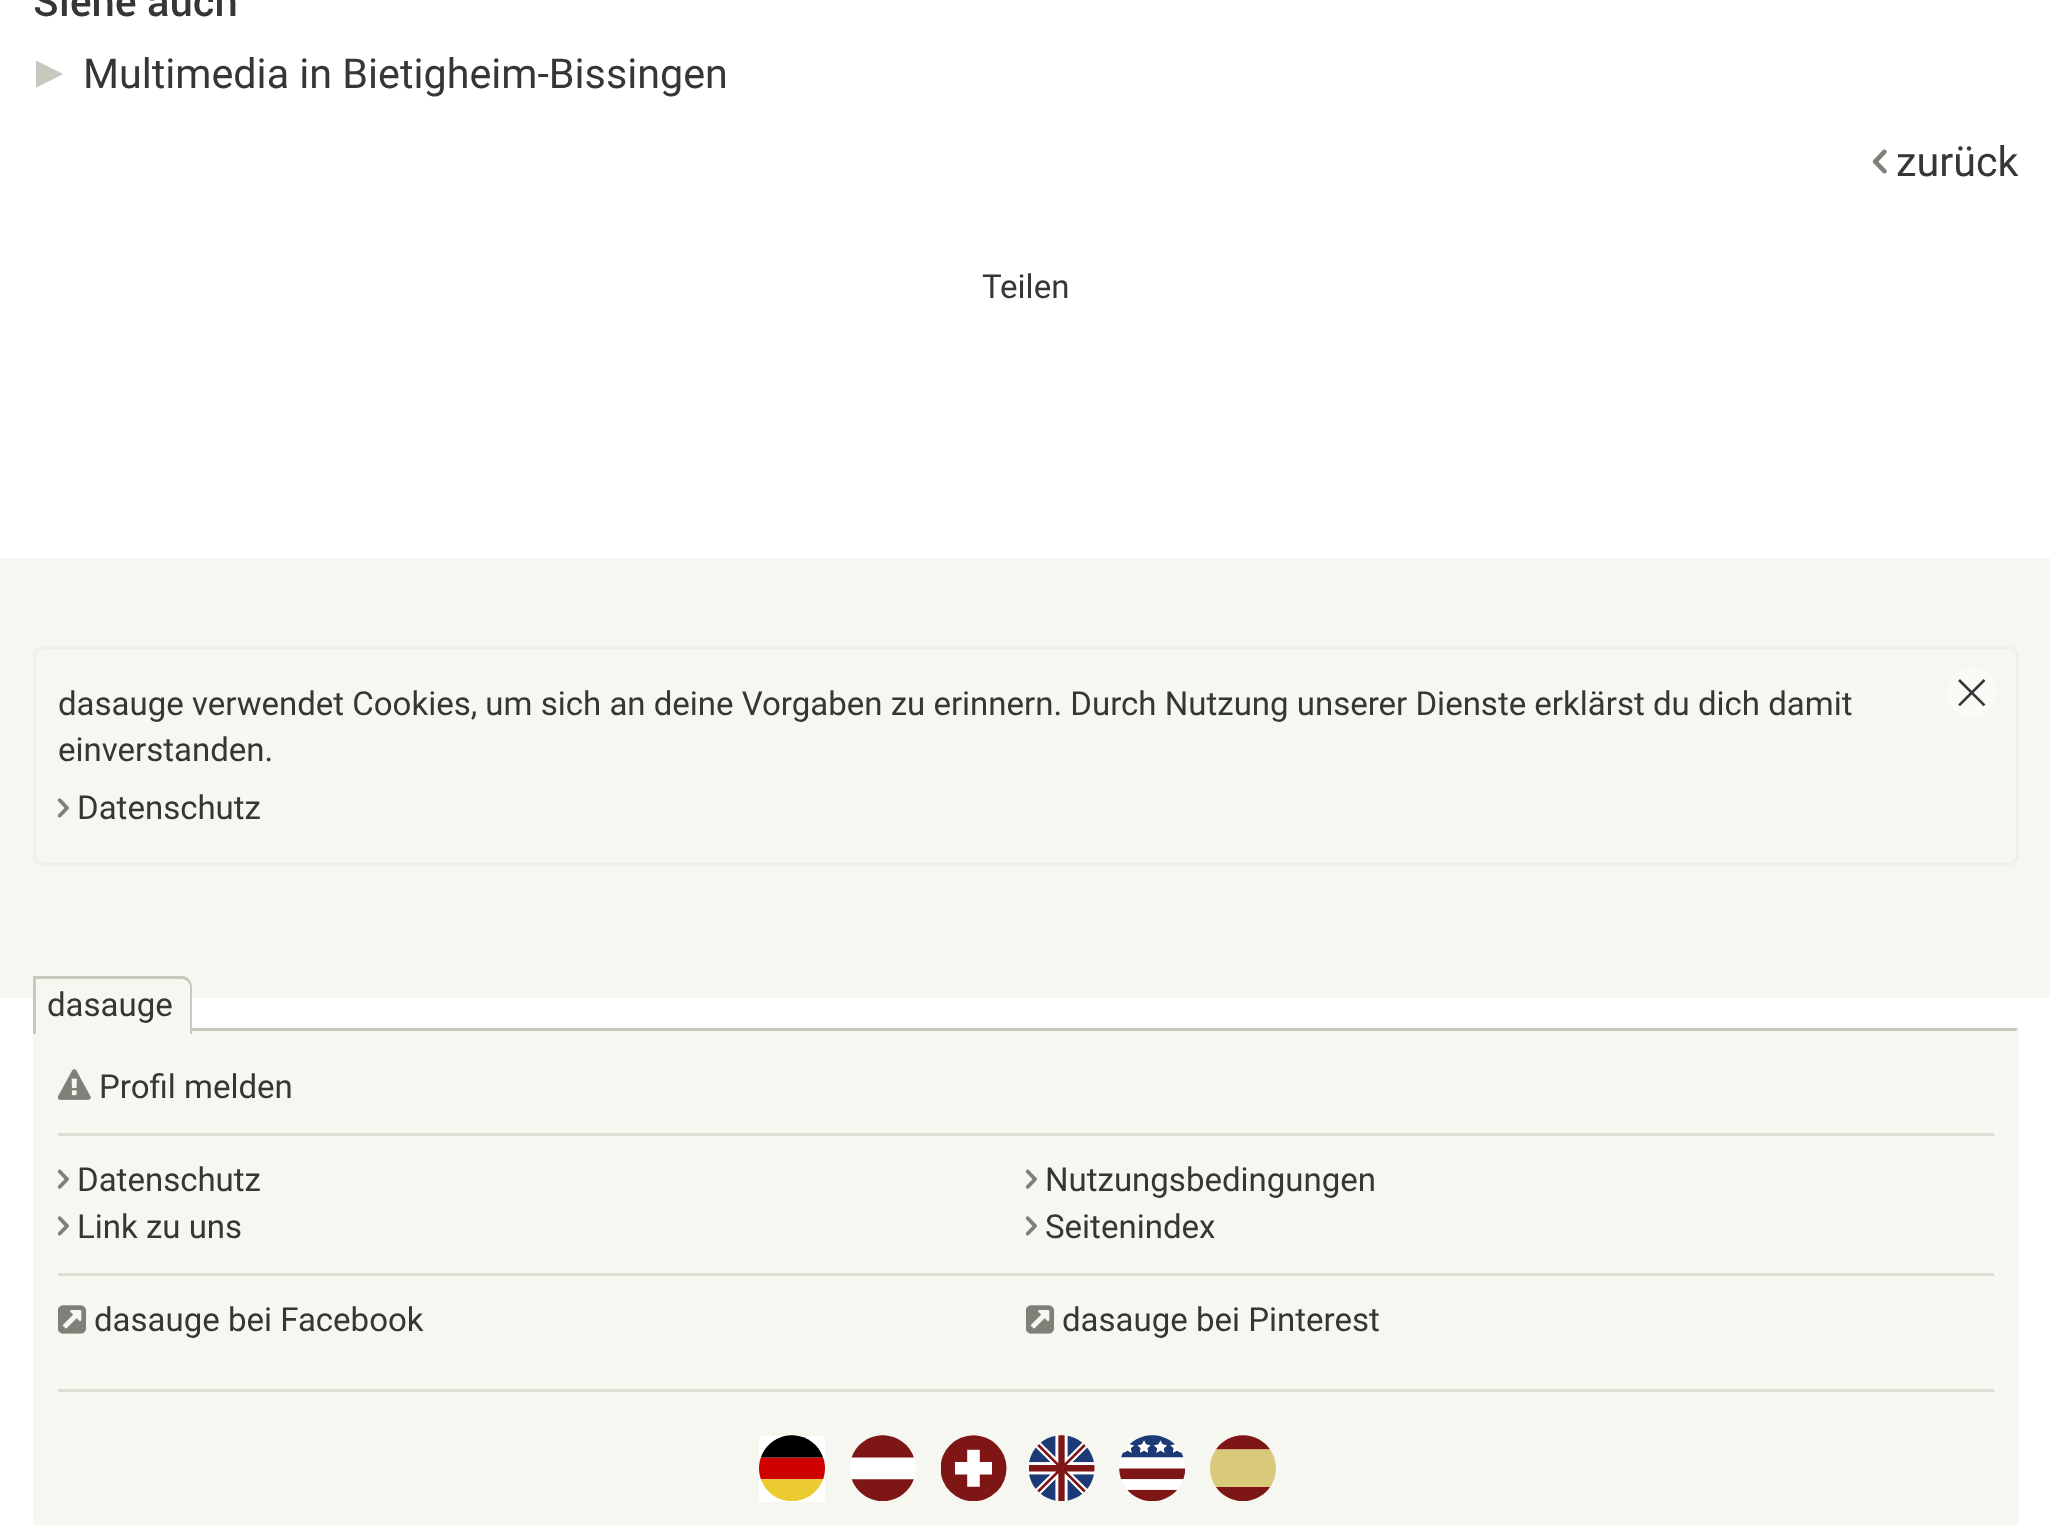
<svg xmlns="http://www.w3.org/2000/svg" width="2050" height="1525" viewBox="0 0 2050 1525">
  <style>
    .t1 { font: 500 41.25px Roboto; fill: #363634; }
    .t2 { font: 41.25px Roboto; fill: #363634; }
    .t3 { font: 33px Roboto; fill: #363634; }
  </style>
  <rect width="100%" height="100%" fill="#fff"/>
  <text x="33" y="16" class="t1">Siehe auch</text>
  <image x="36" y="60" width="27" height="28" href="images/1.png"/>
  <text x="83" y="88" class="t2">Multimedia in Bietigheim-Bissingen</text>
  <image x="1872" y="149" width="15" height="25" href="images/2.png"/>
  <text x="1896" y="176" class="t2">zurück</text>
  <text x="982" y="298" class="t3">Teilen</text>
  <rect x="0" y="558" width="2050" height="440" fill="#f7f7f2"/>
  <rect x="34.5" y="647.5" width="1983" height="217" rx="9.5" fill="none" stroke="#f0f0e6" stroke-width="3"/>
  <text x="58" y="715" class="t3">dasauge verwendet Cookies, um sich an deine Vorgaben zu erinnern. Durch Nutzung unserer Dienste erklärst du dich damit</text>
  <text x="58" y="761" class="t3">einverstanden.</text>
  <image x="1947" y="668" width="49" height="49" href="images/3.png"/>
  <image x="57" y="798" width="12" height="20" href="images/4.png"/>
  <text x="77" y="819" class="t3">Datenschutz</text>
  <rect x="33" y="1029" width="1986" height="496" fill="#f7f7f2"/>
  <path d="M36 1031V1032L33 1028H2018L2016 1031Z" fill="#c8c8be"/>
  <path d="M36 979H182C186.5 979 190 982.5 190 987V1034H36Z" fill="#f7f7f2"/>
  <path d="M33 976H182C188 976 192 981 192 987V1034H33ZM36 979H182C186 979 190 983 190 987V1034H36Z" fill="#c8c8be" fill-rule="evenodd"/>
  <text x="47" y="1016" class="t3">dasauge</text>
  <image x="58" y="1069" width="33" height="31" href="images/5.png"/>
  <text x="99" y="1098" class="t3">Profil melden</text>
  <rect x="58" y="1133" width="1936" height="3" fill="#dcdcd2"/>
  <image x="58" y="1169" width="11" height="20" href="images/6.png"/>
  <text x="77" y="1191" class="t3">Datenschutz</text>
  <image x="1026" y="1169" width="11" height="20" href="images/6.png"/>
  <text x="1045" y="1191" class="t3">Nutzungsbedingungen</text>
  <image x="58" y="1216" width="11" height="20" href="images/7.png"/>
  <text x="77" y="1238" class="t3">Link zu uns</text>
  <image x="1026" y="1216" width="11" height="20" href="images/7.png"/>
  <text x="1045" y="1238" class="t3">Seitenindex</text>
  <rect x="58" y="1273" width="1936" height="3" fill="#dcdcd2"/>
  <image x="58" y="1305" width="28" height="29" href="images/8.png"/>
  <text x="94" y="1331" class="t3">dasauge bei Facebook</text>
  <image x="1026" y="1305" width="28" height="29" href="images/8.png"/>
  <text x="1062" y="1331" class="t3">dasauge bei Pinterest</text>
  <rect x="58" y="1389" width="1936" height="3" fill="#dcdcd2"/>
  <rect x="759" y="1436" width="66" height="66" fill="#fff"/>
  <image x="759" y="1435" width="66" height="66" href="images/9.png"/>
  <image x="850" y="1435" width="66" height="66" href="images/10.png"/>
  <image x="941" y="1435" width="66" height="66" href="images/11.png"/>
  <image x="1029" y="1435" width="66" height="66" href="images/12.png"/>
  <image x="1119" y="1435" width="66" height="66" href="images/13.png"/>
  <image x="1210" y="1435" width="66" height="66" href="images/14.png"/>
</svg>
